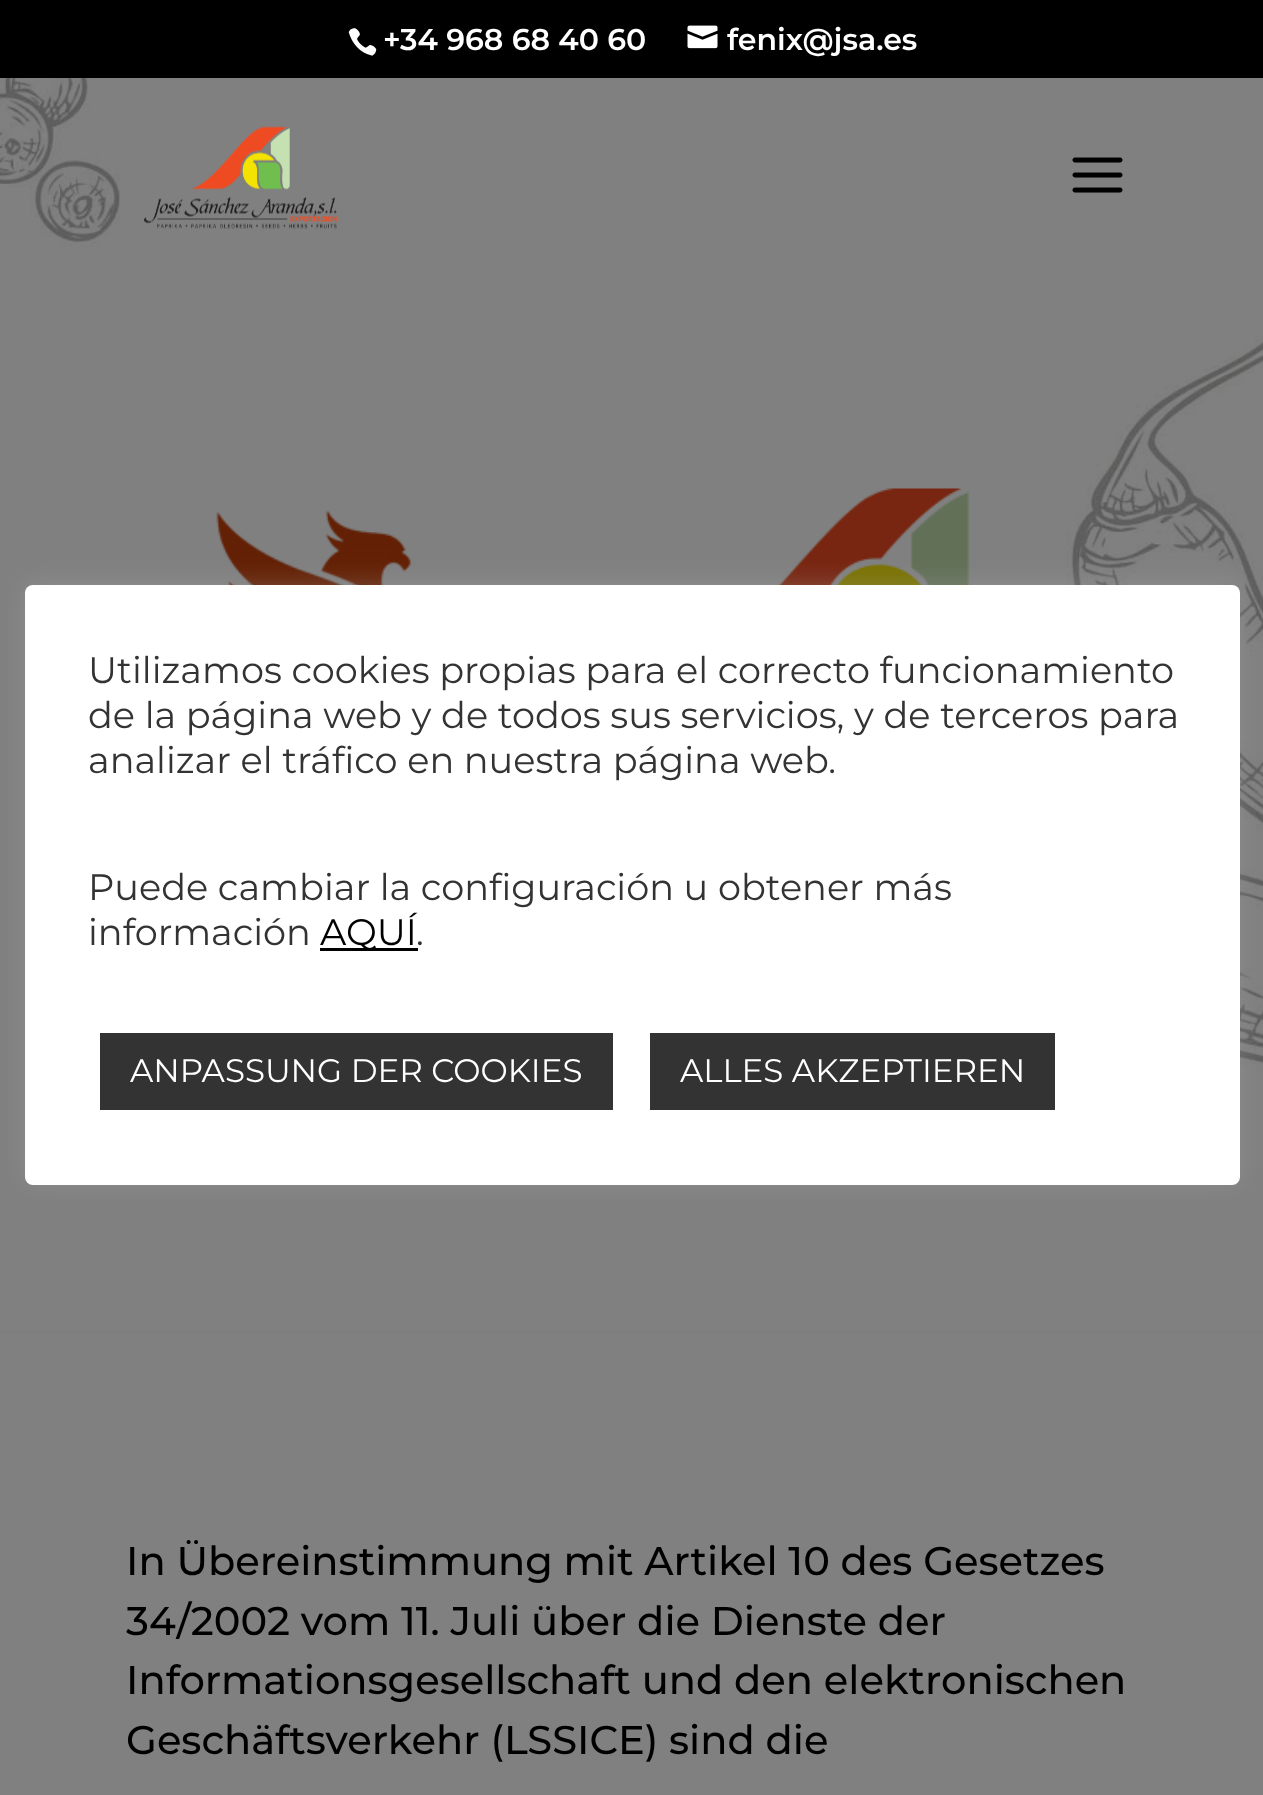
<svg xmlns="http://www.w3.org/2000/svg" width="1263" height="1795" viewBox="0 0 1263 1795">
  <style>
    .t1 { font: 100 30px 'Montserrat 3'; fill: #fff; }
    .t2 { font: 100 40px Montserrat; fill: #000; }
    .t3 { font: 100 36.7px 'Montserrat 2'; fill: #333; }
    .t4 { font: 100 36.7px 'Montserrat 2'; fill: #000; }
    .t5 { font: 100 32.5px 'Montserrat 2'; fill: #fff; }
  </style>
  <rect width="100%" height="100%" fill="#808080"/>
  <rect x="0" y="0" width="1263" height="78" fill="#000"/>
  <image x="348" y="28" width="29" height="28" href="images/1.png"/>
  <text x="383" y="50" class="t1">+34 968 68 40 60</text>
  <image x="687" y="25" width="31" height="24" href="images/2.png"/>
  <text x="727" y="50" class="t1">fenix@jsa.es</text>
  <rect x="0" y="1332" width="1263" height="1" fill="#7a7a79"/>
  <image x="0" y="78" width="1263" height="1255" href="images/5.png"/>
  <image x="144" y="126" width="193" height="103" href="images/3.png"/>
  <image x="1072" y="157" width="51" height="36" href="images/4.png"/>
  <image x="216" y="488" width="754" height="97" href="images/6.png"/>
  <text x="126" y="1575" class="t2">In Übereinstimmung mit Artikel 10 des Gesetzes</text>
  <text x="126" y="1635" class="t2">34/2002 vom 11. Juli über die Dienste der</text>
  <text x="126" y="1694" class="t2">Informationsgesellschaft und den elektronischen</text>
  <text x="126" y="1754" class="t2">Geschäftsverkehr (LSSICE) sind die</text>
  <rect x="25" y="583" width="1215" height="600" rx="8" fill="#acabab4d" filter="blur(12.5px)"/>
  <rect x="25" y="585" width="1215" height="600" rx="8" fill="#fff"/>
  <text x="88" y="683" class="t3">Utilizamos cookies propias para el correcto funcionamiento</text>
  <text x="88" y="728" class="t3">de la página web y de todos sus servicios, y de terceros para</text>
  <text x="88" y="773" class="t3">analizar el tráfico en nuestra página web.</text>
  <text x="88" y="900" class="t3">Puede cambiar la configuración u obtener más</text>
  <text x="88" y="945" class="t3">información</text>
  <rect x="320" y="948" width="98" height="3" fill="#000"/>
  <text x="320" y="945" class="t4">AQUÍ</text>
  <text x="416" y="945" class="t3">.</text>
  <rect x="100" y="1033" width="513" height="77" fill="#333"/>
  <text x="130" y="1082" class="t5">ANPASSUNG DER COOKIES</text>
  <rect x="650" y="1033" width="405" height="77" fill="#333"/>
  <text x="680" y="1082" class="t5">ALLES AKZEPTIEREN</text>
</svg>
